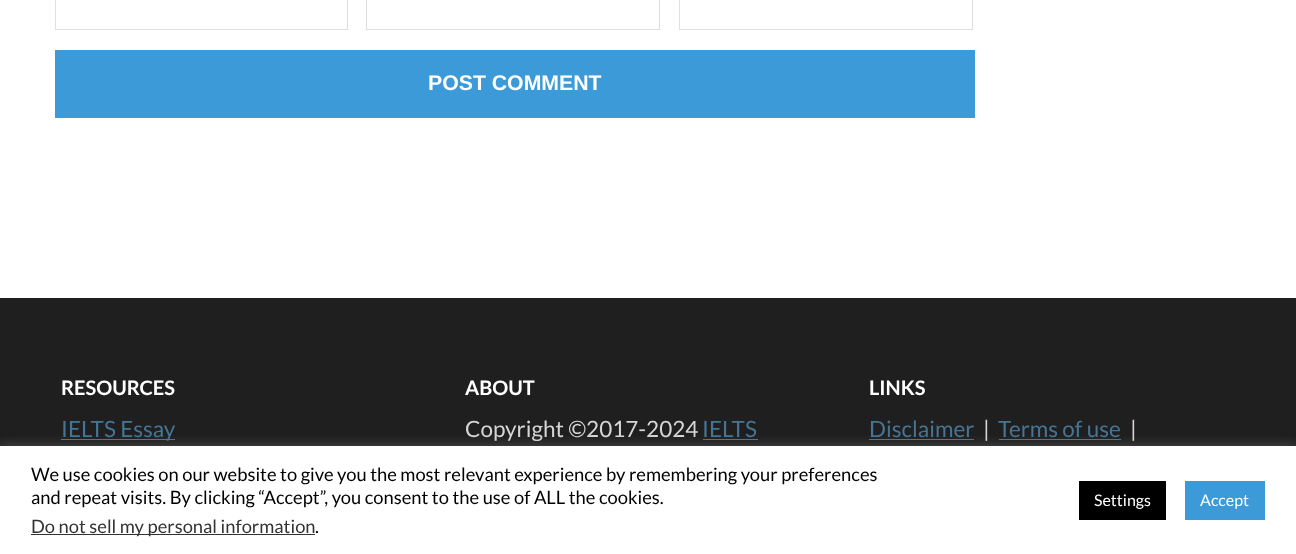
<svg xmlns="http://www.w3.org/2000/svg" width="1296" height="554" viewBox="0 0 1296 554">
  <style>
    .t1 { font: bold 21.25px Liberation Sans; fill: #fff; }
    .t2 { font: bold 20px Lato; fill: #fff; }
    .t3 { font: 22.5px Lato; fill: #457593; }
    .t4 { font: 22.5px Lato; fill: #d6d6d6; }
    .t5 { font: 18.35px Lato; fill: #000; }
    .t6 { font: 18.35px Lato; fill: #333; }
    .t7 { font: 16px Lato; fill: #fff; }
  </style>
  <rect width="100%" height="100%" fill="#fff"/>
  <rect x="55.5" y="-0.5" width="292" height="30" fill="none" stroke="#dfdfdf"/>
  <rect x="366.5" y="-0.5" width="293" height="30" fill="none" stroke="#dfdfdf"/>
  <rect x="679.5" y="-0.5" width="293" height="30" fill="none" stroke="#dfdfdf"/>
  <rect x="55" y="50" width="920" height="68" fill="#3b9ad7"/>
  <text x="428" y="90" class="t1">POST COMMENT</text>
  <rect x="0" y="298" width="1296" height="148" fill="#1f1f1f"/>
  <text x="61" y="395" class="t2">RESOURCES</text>
  <rect x="61" y="439" width="114" height="1" fill="#457593"/>
  <text x="61" y="437" class="t3">IELTS Essay</text>
  <text x="465" y="395" class="t2">ABOUT</text>
  <text x="465" y="437" class="t4">Copyright ©2017-2024</text>
  <text x="702" y="437" class="t3">IELTS</text>
  <rect x="703" y="439" width="55" height="1" fill="#457593"/>
  <text x="869" y="395" class="t2">LINKS</text>
  <text x="869" y="437" class="t3">Disclaimer</text>
  <rect x="869" y="439" width="105" height="1" fill="#457593"/>
  <text x="983" y="437" class="t4">|</text>
  <text x="998" y="437" class="t3">Terms of use</text>
  <rect x="999" y="439" width="122" height="1" fill="#457593"/>
  <text x="1130" y="437" class="t4">|</text>
  <rect x="0" y="445" width="1296" height="109" fill="#acabab4d" filter="blur(6px)"/>
  <rect x="0" y="446" width="1296" height="108" fill="#fff"/>
  <text x="31" y="481" class="t5">We use cookies on our website to give you the most relevant experience by remembering your preferences</text>
  <text x="31" y="504" class="t5">and repeat visits. By clicking “Accept”, you consent to the use of ALL the cookies.</text>
  <rect x="31" y="534" width="284" height="1" fill="#333"/>
  <text x="31" y="533" class="t6">Do not sell my personal information</text>
  <text x="315" y="533" class="t5">.</text>
  <rect x="1079" y="481" width="87" height="39" fill="#000"/>
  <text x="1094" y="506" class="t7">Settings</text>
  <rect x="1185" y="481" width="80" height="39" fill="#3b9ad7"/>
  <text x="1200" y="506" class="t7">Accept</text>
</svg>
